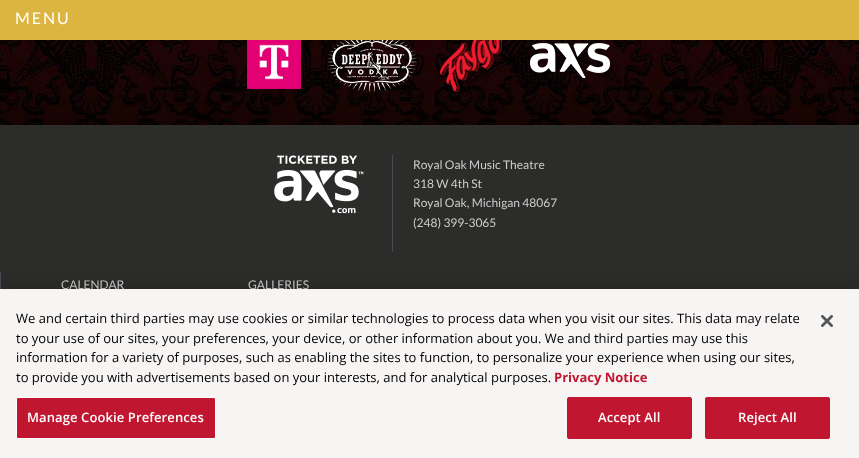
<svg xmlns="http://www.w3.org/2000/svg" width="859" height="458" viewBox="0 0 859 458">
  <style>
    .t1 { font: 16px Lato; letter-spacing: 2px; fill: #fff; }
    .t2 { font: 12px Lato; fill: #ccc; }
    .t3 { font: 13px Open Sans; fill: #000; }
    .t4 { font: bold 13px Open Sans; fill: #c11630; }
    .t5 { font: 600 13px Open Sans; letter-spacing: 0.1px; fill: #fff; }
  </style>
  <rect width="100%" height="100%" fill="#fff"/>
  <image x="0" y="40" width="859" height="85" href="images/1.png"/>
  <rect x="0" y="0" width="859" height="40" fill="#dcb540"/>
  <text x="15" y="24" class="t1">MENU</text>
  <image x="247" y="40" width="55" height="50" href="images/2.png"/>
  <image x="327" y="40" width="90" height="52" href="images/3.png"/>
  <image x="440" y="40" width="62" height="52" href="images/4.png"/>
  <image x="530" y="43" width="80" height="35" href="images/5.png"/>
  <rect x="0" y="125" width="859" height="164" fill="#2c2c2a"/>
  <image x="274" y="155" width="90" height="59" href="images/6.png"/>
  <rect x="392" y="155" width="1" height="97" fill="#444b53"/>
  <text x="413" y="169" class="t2">Royal Oak Music Theatre</text>
  <text x="413" y="188" class="t2">318 W 4th St</text>
  <text x="413" y="207" class="t2">Royal Oak, Michigan 48067</text>
  <text x="413" y="227" class="t2">(248) 399-3065</text>
  <rect x="0" y="272" width="1" height="17" fill="#444b53"/>
  <text x="61" y="289" class="t2">CALENDAR</text>
  <text x="248" y="289" class="t2">GALLERIES</text>
  <rect x="0" y="289" width="859" height="169" fill="#00000033" filter="blur(9px)"/>
  <rect x="0" y="289" width="859" height="169" fill="#f7f4f4"/>
  <text x="16" y="323" class="t3">We and certain third parties may use cookies or similar technologies to process data when you visit our sites. This data may relate</text>
  <text x="16" y="343" class="t3">to your use of our sites, your preferences, your device, or other information about you. We and third parties may use this</text>
  <text x="16" y="362" class="t3">information for a variety of purposes, such as enabling the sites to function, to personalize your experience when using our sites,</text>
  <text x="16" y="382" class="t3">to provide you with advertisements based on your interests, and for analytical purposes.</text>
  <text x="554" y="382" class="t4">Privacy Notice</text>
  <rect x="16.5" y="397.5" width="199" height="41" rx="1.5" fill="#c11630" stroke="#fff"/>
  <text x="27" y="422" class="t5">Manage Cookie Preferences</text>
  <rect x="567.5" y="397.5" width="124" height="41" rx="1.5" fill="#c11630" stroke="#c11630"/>
  <text x="598" y="422" class="t5">Accept All</text>
  <rect x="705.5" y="397.5" width="124" height="41" rx="1.5" fill="#c11630" stroke="#c11630"/>
  <text x="738" y="422" class="t5">Reject All</text>
  <image x="821" y="315" width="12" height="12" href="images/7.png"/>
</svg>
